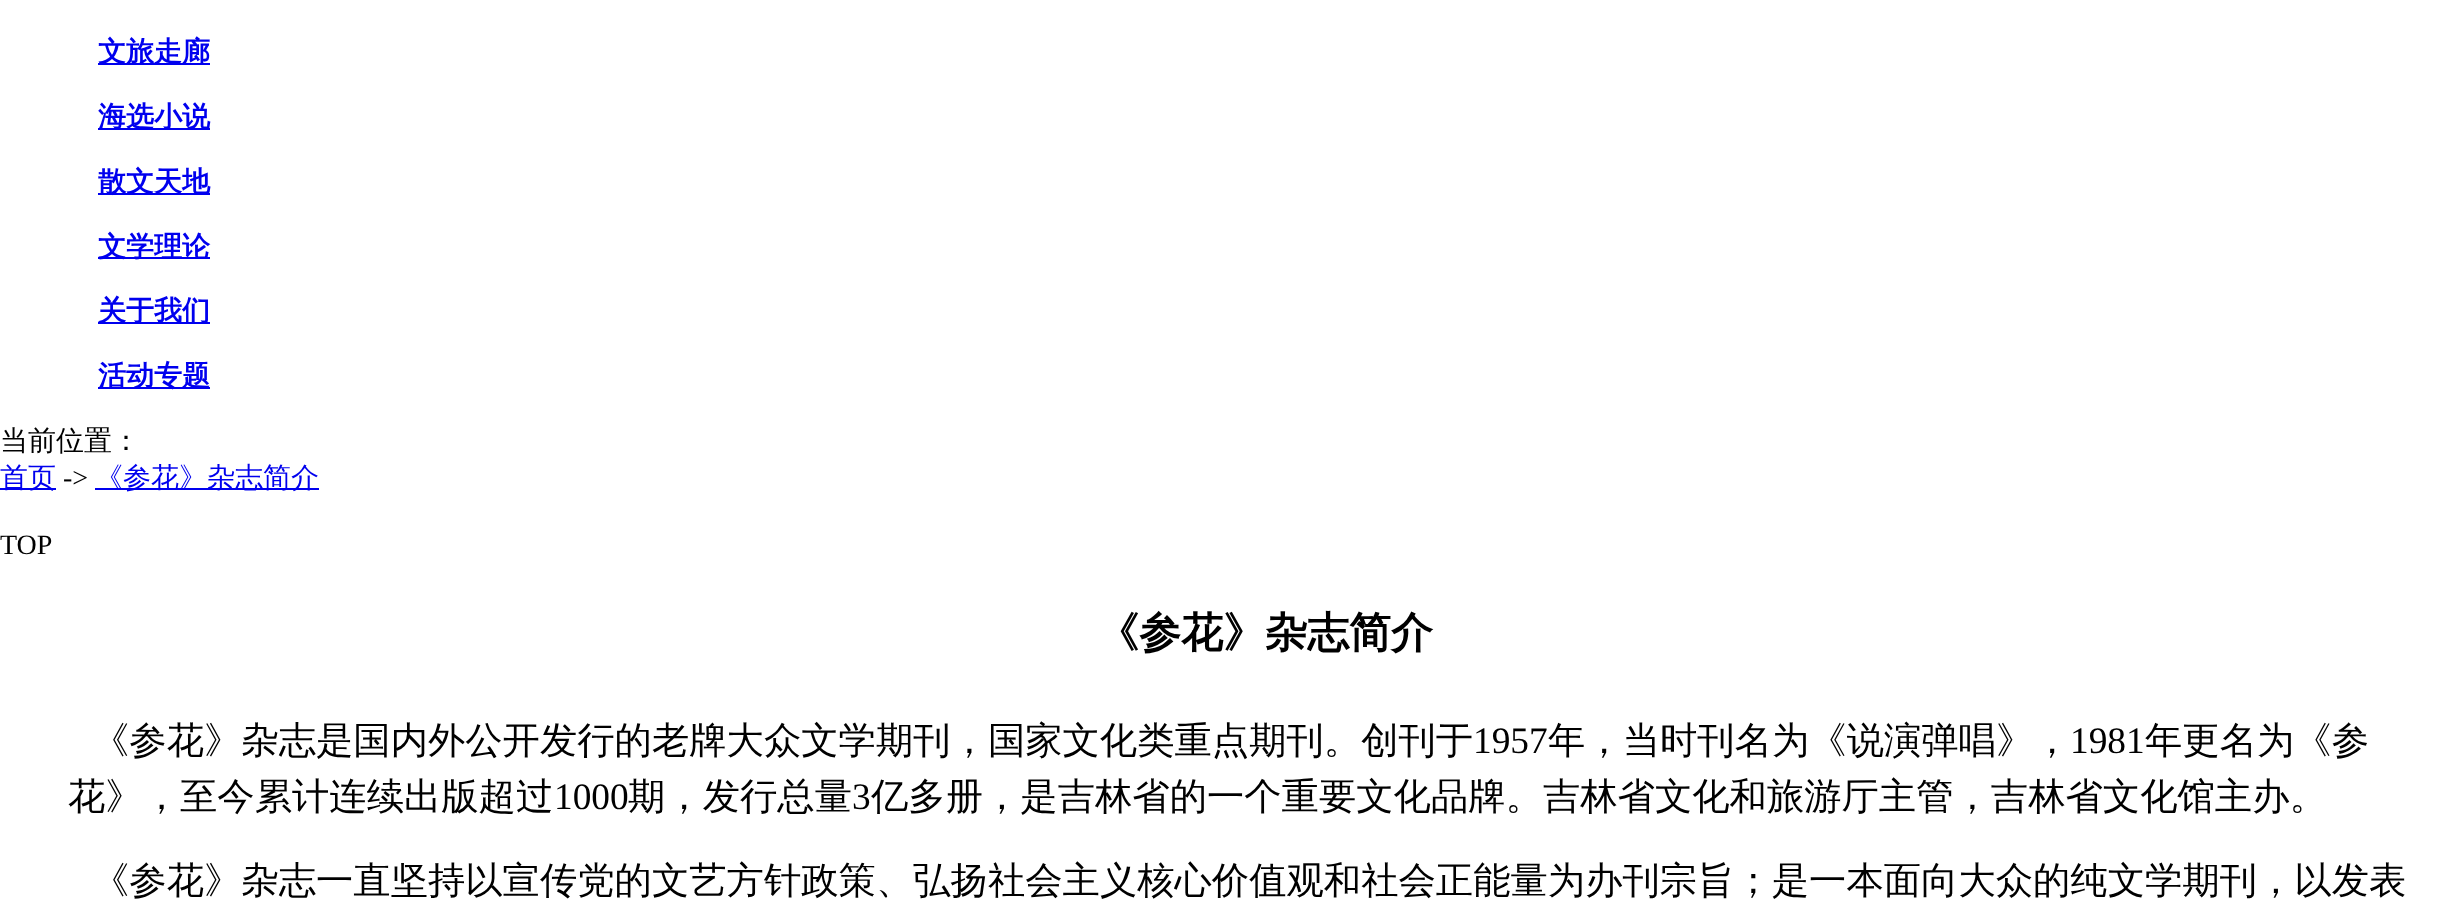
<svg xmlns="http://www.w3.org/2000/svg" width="2454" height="907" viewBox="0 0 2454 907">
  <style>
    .t1 { font: bold 28px WenQuanYi Zen Hei; fill: #00e; }
    .t2 { font: 500 28px WenQuanYi Zen Hei; fill: #000; }
    .t3 { font: 500 28px WenQuanYi Zen Hei; fill: #00e; }
    .t4 { font: 28px Liberation Serif; fill: #000; }
    .t5 { font: bold 42px WenQuanYi Zen Hei; fill: #000; }
    .t6 { font: 500 37.33px WenQuanYi Zen Hei; fill: #000; }
    .t7 { font: 37.33px Liberation Serif; fill: #000; }
  </style>
  <rect width="100%" height="100%" fill="#fff"/>
  <rect x="98" y="63" width="112" height="2" fill="#00e"/>
  <text x="98" y="61" class="t1">文旅走廊</text>
  <rect x="98" y="128" width="112" height="2" fill="#00e"/>
  <text x="98" y="126" class="t1">海选小说</text>
  <rect x="98" y="193" width="112" height="2" fill="#00e"/>
  <text x="98" y="191" class="t1">散文天地</text>
  <rect x="98" y="257" width="112" height="2" fill="#00e"/>
  <text x="98" y="256" class="t1">文学理论</text>
  <rect x="98" y="322" width="112" height="2" fill="#00e"/>
  <text x="98" y="320" class="t1">关于我们</text>
  <rect x="98" y="387" width="112" height="2" fill="#00e"/>
  <text x="98" y="385" class="t1">活动专题</text>
  <text x="0" y="450" class="t2">当前位置：</text>
  <rect x="0" y="488" width="56" height="2" fill="#00e"/>
  <text x="0" y="487" class="t3">首页</text>
  <text x="63" y="487" class="t4">-&gt;</text>
  <rect x="95" y="488" width="224" height="2" fill="#00e"/>
  <text x="95" y="487" class="t3">《参花》杂志简介</text>
  <text x="0" y="554" class="t4">TOP</text>
  <text x="1097" y="647" class="t5">《参花》杂志简介</text>
  <text x="92" y="753" class="t6">《参花》杂志是国内外公开发行的老牌大众文学期刊，国家文化类重点期刊。创刊于</text>
  <text x="1473" y="753" class="t7">1957</text>
  <text x="1548" y="753" class="t6">年，当时刊名为《说演弹唱》，</text>
  <text x="2070" y="753" class="t7">1981</text>
  <text x="2145" y="753" class="t6">年更名为《参</text>
  <text x="68" y="809" class="t6">花》，至今累计连续出版超过</text>
  <text x="554" y="809" class="t7">1000</text>
  <text x="628" y="809" class="t6">期，发行总量</text>
  <text x="852" y="809" class="t7">3</text>
  <text x="871" y="809" class="t6">亿多册，是吉林省的一个重要文化品牌。吉林省文化和旅游厅主管，吉林省文化馆主办。</text>
  <text x="92" y="893" class="t6">《参花》杂志一直坚持以宣传党的文艺方针政策、弘扬社会主义核心价值观和社会正能量为办刊宗旨；是一本面向大众的纯文学期刊，以发表</text>
</svg>
